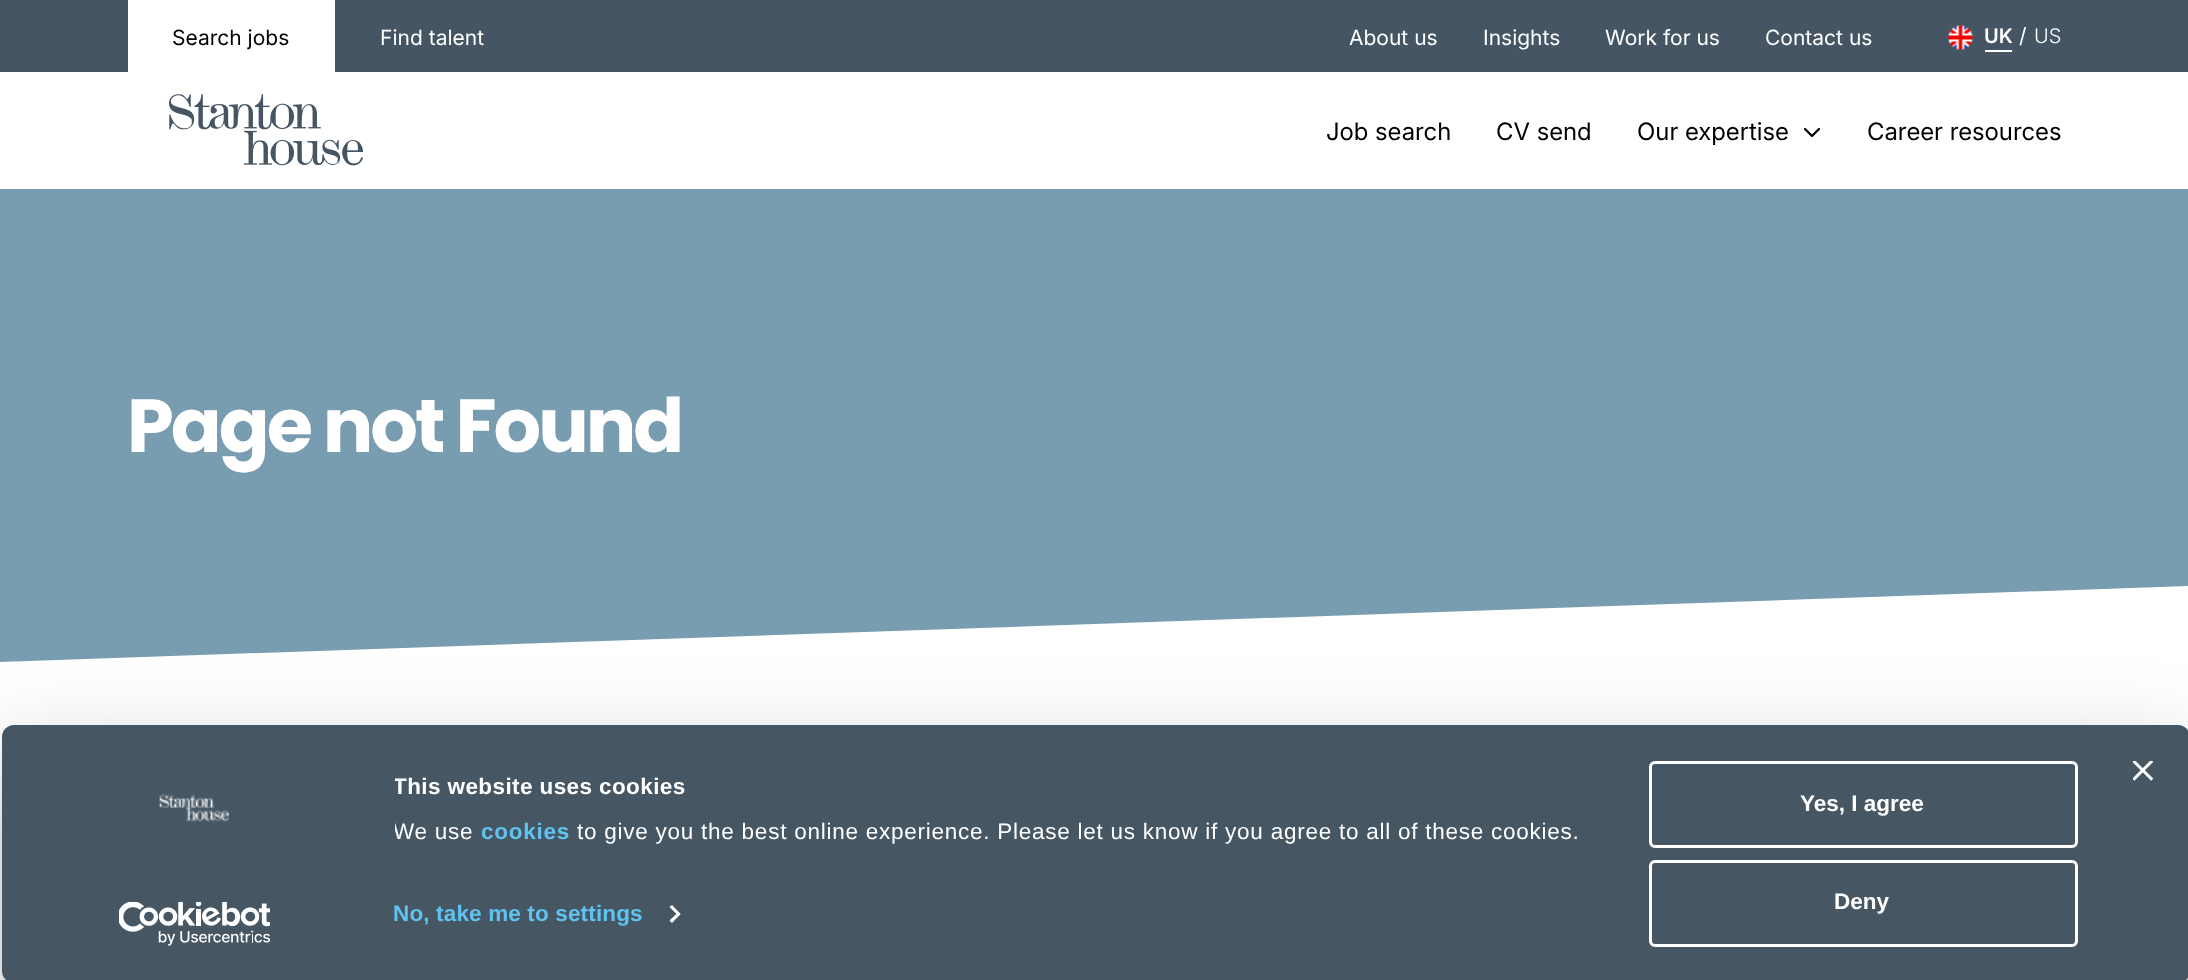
<svg xmlns="http://www.w3.org/2000/svg" width="2188" height="980" viewBox="0 0 2188 980">
  <style>
    .t1 { font: 21px Inter; fill: #000; }
    .t2 { font: 21px Inter; fill: #fff; }
    .t3 { font: 600 20px Inter; fill: #fff; }
    .t4 { font: 300 20px Inter; fill: #fff; }
    .t5 { font: 24px 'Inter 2'; fill: #000; }
    .t6 { font: bold 75px Poppins; letter-spacing: -3px; fill: #fff; }
    .t7 { font: bold 22.5px Liberation Sans; letter-spacing: 0.4px; fill: #fff; }
    .t8 { font: 22.5px Liberation Sans; letter-spacing: 0.75px; fill: #fff; }
    .t9 { font: bold 22.5px Liberation Sans; letter-spacing: 0.75px; fill: #60c3ef; }
    .t10 { font: bold 22.5px Liberation Sans; letter-spacing: 0.15px; fill: #60c3ef; }
    .t11 { font: bold 22.5px Liberation Sans; fill: #fff; }
  </style>
  <defs>
    <clipPath id="clip1"><path d="M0 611H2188V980H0ZM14 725H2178C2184.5 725 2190 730.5 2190 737V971C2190 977.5 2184.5 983 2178 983H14C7.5 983 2 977.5 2 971V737C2 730.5 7.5 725 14 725Z" clip-rule="evenodd"/></clipPath>
    <clipPath id="clip2"><rect x="395" y="770" width="1245" height="81"/></clipPath>
  </defs>
  <rect width="100%" height="100%" fill="#fff"/>
  <rect x="0" y="0" width="2188" height="72" fill="#455563"/>
  <rect x="128" y="0" width="207" height="72" fill="#fff"/>
  <text x="172" y="45" class="t1">Search jobs</text>
  <text x="380" y="45" class="t2">Find talent</text>
  <text x="1349" y="45" class="t2">About us</text>
  <text x="1483" y="45" class="t2">Insights</text>
  <text x="1605" y="45" class="t2">Work for us</text>
  <text x="1765" y="45" class="t2">Contact us</text>
  <image x="1948" y="25" width="25" height="25" href="images/1.png"/>
  <text x="1984" y="43" class="t3">UK</text>
  <rect x="1985" y="50" width="27" height="2" fill="#fff"/>
  <text x="2019" y="43" class="t2">/</text>
  <text x="2034" y="43" class="t4">US</text>
  <image x="169" y="94" width="195" height="72" href="images/2.png"/>
  <text x="1326" y="140" class="t5">Job search</text>
  <text x="1496" y="140" class="t5">CV send</text>
  <text x="1637" y="140" class="t5">Our expertise</text>
  <path d="M1819 129L1812 136L1805 129" fill="none" stroke="#000" stroke-width="2.2" stroke-linecap="round" stroke-linejoin="round"/>
  <text x="1867" y="140" class="t5">Career resources</text>
  <path d="M0 189V662L2188 586V189Z" fill="#789cb0"/>
  <text x="127" y="452" class="t6">Page not Found</text>
  <g clip-path="url(#clip1)">
    <rect x="2" y="770" width="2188" height="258" rx="12" fill="#0000004d" filter="blur(52.5px)"/>
  </g>
  <rect x="2" y="725" width="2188" height="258" rx="12" fill="#465763"/>
  <image x="2133" y="761" width="21" height="20" href="images/3.png"/>
  <image x="159" y="794" width="70" height="28" href="images/4.png"/>
  <image x="119" y="902" width="151" height="44" href="images/5.png"/>
  <g clip-path="url(#clip2)">
    <text x="393" y="794" class="t7">This website uses cookies</text>
    <text x="393" y="839" class="t8">We use</text>
  </g>
  <text x="481" y="839" class="t9">cookies</text>
  <text x="577" y="839" class="t8">to give you the best online experience. Please let us know if you agree to all of these cookies.</text>
  <text x="393" y="921" class="t10">No, take me to settings</text>
  <path d="M672 905L680.5 914L678.5 916L669.5 907Z" fill="#fff"/>
  <path d="M678.5 912L680.5 914L672 923L669.5 920.5Z" fill="#fff"/>
  <rect x="1650.5" y="762.5" width="426" height="84" rx="4.5" fill="none" stroke="#fff" stroke-width="3"/>
  <text x="1800" y="811" class="t11">Yes, I agree</text>
  <rect x="1650.5" y="861.5" width="426" height="84" rx="4.5" fill="none" stroke="#fff" stroke-width="3"/>
  <text x="1834" y="909" class="t11">Deny</text>
</svg>
